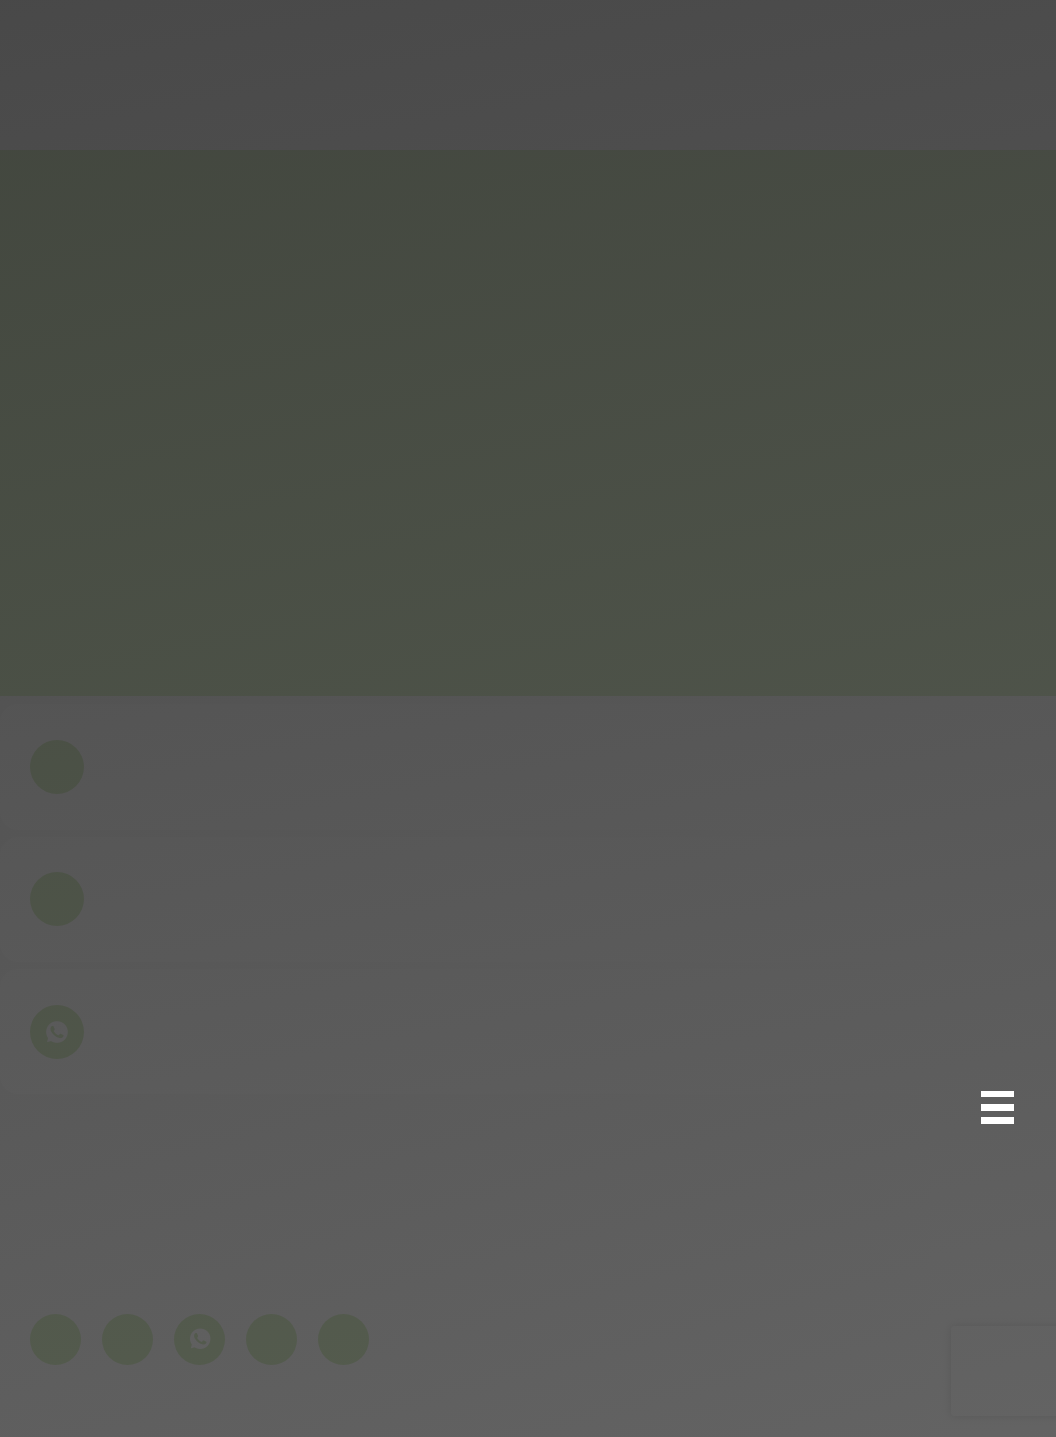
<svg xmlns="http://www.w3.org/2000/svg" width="1056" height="1437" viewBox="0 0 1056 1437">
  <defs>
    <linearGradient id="g1" gradientUnits="userSpaceOnUse" x1="0" y1="423" x2="1056" y2="423"><stop offset="0" stop-color="#69bd1e"/><stop offset="1" stop-color="#79c436"/></linearGradient>
    <linearGradient id="g2" gradientUnits="userSpaceOnUse" x1="0" y1="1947" x2="1056" y2="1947"><stop offset="0" stop-color="#eaeaea"/><stop offset="1" stop-color="#fff"/></linearGradient>
    <clipPath id="clip1"><path d="M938 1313H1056V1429H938ZM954 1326H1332C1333.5 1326 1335 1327.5 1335 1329V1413C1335 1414.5 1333.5 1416 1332 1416H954C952.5 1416 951 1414.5 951 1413V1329C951 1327.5 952.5 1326 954 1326Z" clip-rule="evenodd"/></clipPath>
    <linearGradient id="g3" gradientUnits="userSpaceOnUse" x1="315" y1="-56" x2="741" y2="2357"><stop offset="0" stop-color="#3f3f3f" stop-opacity="0.95"/><stop offset="1" stop-color="#616161" stop-opacity="0.9"/></linearGradient>
  </defs>
  <rect width="100%" height="100%" fill="#fff"/>
  <rect x="0" y="150" width="1056" height="546" fill="url(#g1)"/>
  <rect x="0" y="696" width="930" height="741" fill="url(#g2)"/>
  <rect x="0" y="704" width="1056" height="126" rx="18" fill="#fff"/>
  <circle cx="57" cy="767" r="27" fill="#61ba12"/>
  <rect x="0" y="837" width="1056" height="125" rx="18" fill="#fff"/>
  <circle cx="57" cy="899" r="27" fill="#61ba12"/>
  <rect x="0" y="969" width="1056" height="125" rx="18" fill="#fff"/>
  <circle cx="57" cy="1032" r="27" fill="#61ba12"/>
  <image x="46" y="1021" width="22" height="22" href="images/1.png"/>
  <circle cx="55.5" cy="1339.5" r="25.5" fill="#61ba12"/>
  <circle cx="127.5" cy="1339.5" r="25.5" fill="#61ba12"/>
  <circle cx="199.5" cy="1339.5" r="25.5" fill="#61ba12"/>
  <image x="190" y="1328" width="21" height="21" href="images/2.png"/>
  <circle cx="271.5" cy="1339.5" r="25.5" fill="#61ba12"/>
  <circle cx="343.5" cy="1339.5" r="25.5" fill="#61ba12"/>
  <g clip-path="url(#clip1)">
    <rect x="951" y="1326" width="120" height="90" rx="3" fill="#808080" filter="blur(4px)"/>
  </g>
  <rect x="0" y="0" width="1056" height="1437" fill="url(#g3)"/>
  <rect x="981" y="1091" width="33" height="6" fill="#fff"/>
  <rect x="981" y="1104" width="33" height="7" fill="#fff"/>
  <rect x="981" y="1117" width="33" height="7" fill="#fff"/>
</svg>
